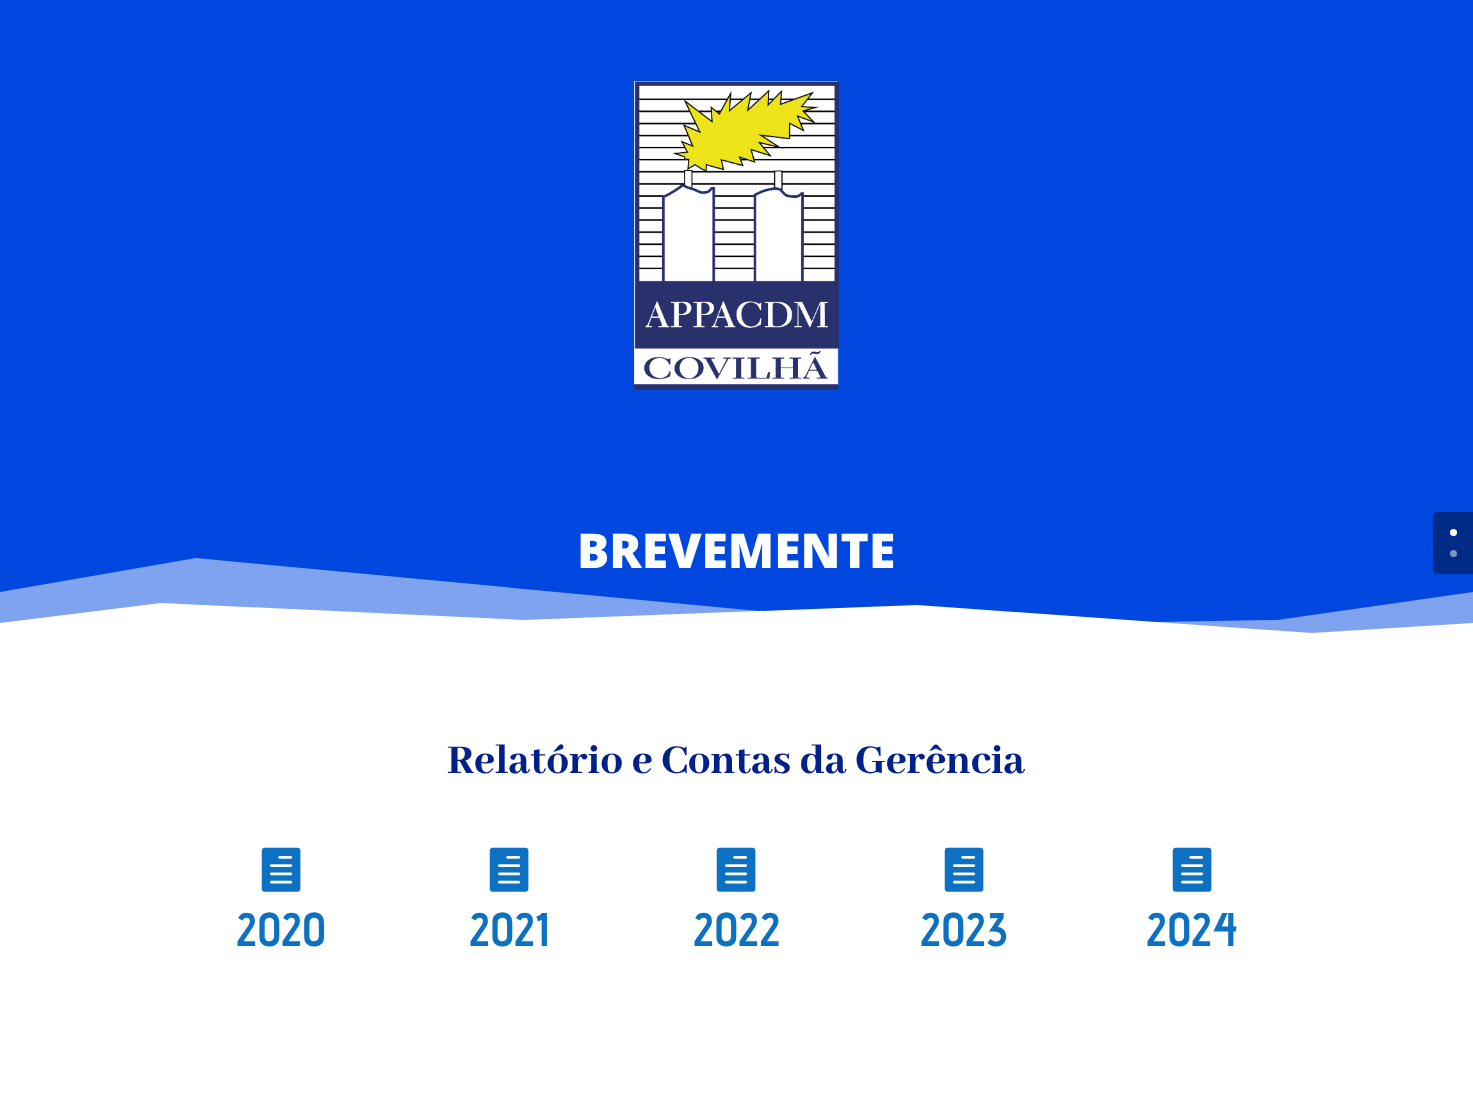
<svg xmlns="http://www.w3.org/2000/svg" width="1473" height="1103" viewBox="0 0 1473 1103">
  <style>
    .t1 { font: 800 48px Open Sans; fill: #fff; }
    .t2 { font: 800 45px Abhaya Libre ExtraBold; fill: #00208a; }
    .t3 { font: bold 47px Advent Pro; fill: #0c71c3; }
  </style>
  <rect width="100%" height="100%" fill="#fff"/>
  <rect x="0" y="0" width="1473" height="622" fill="#0047e0"/>
  <image x="634" y="81" width="205" height="309" href="images/1.png"/>
  <path d="M0 592L196 558L917 626L1277 620L1473 592V658H0Z" fill="#80a3f0"/>
  <text x="577" y="568" class="t1">BREVEMENTE</text>
  <path d="M0 623L161 603L524 620L917 605L1312 633L1473 623V658H0Z" fill="#fff"/>
  <text x="447" y="773" class="t2">Relatório e Contas da Gerência</text>
  <image x="261" y="847" width="40" height="45" href="images/2.png"/>
  <text x="236" y="946" class="t3">2020</text>
  <image x="489" y="847" width="40" height="45" href="images/2.png"/>
  <text x="469" y="946" class="t3">2021</text>
  <image x="716" y="847" width="40" height="45" href="images/2.png"/>
  <text x="693" y="946" class="t3">2022</text>
  <image x="944" y="847" width="40" height="45" href="images/2.png"/>
  <text x="920" y="946" class="t3">2023</text>
  <image x="1172" y="847" width="40" height="45" href="images/2.png"/>
  <text x="1146" y="946" class="t3">2024</text>
  <path d="M1438 512H1473V574H1438C1435 574 1433 572 1433 569V517C1433 514 1435 512 1438 512Z" fill="#002b86"/>
  <circle cx="1453.5" cy="532.5" r="3.5" fill="#fff"/>
  <circle cx="1453.5" cy="553.5" r="3.5" fill="#8095c3"/>
</svg>
